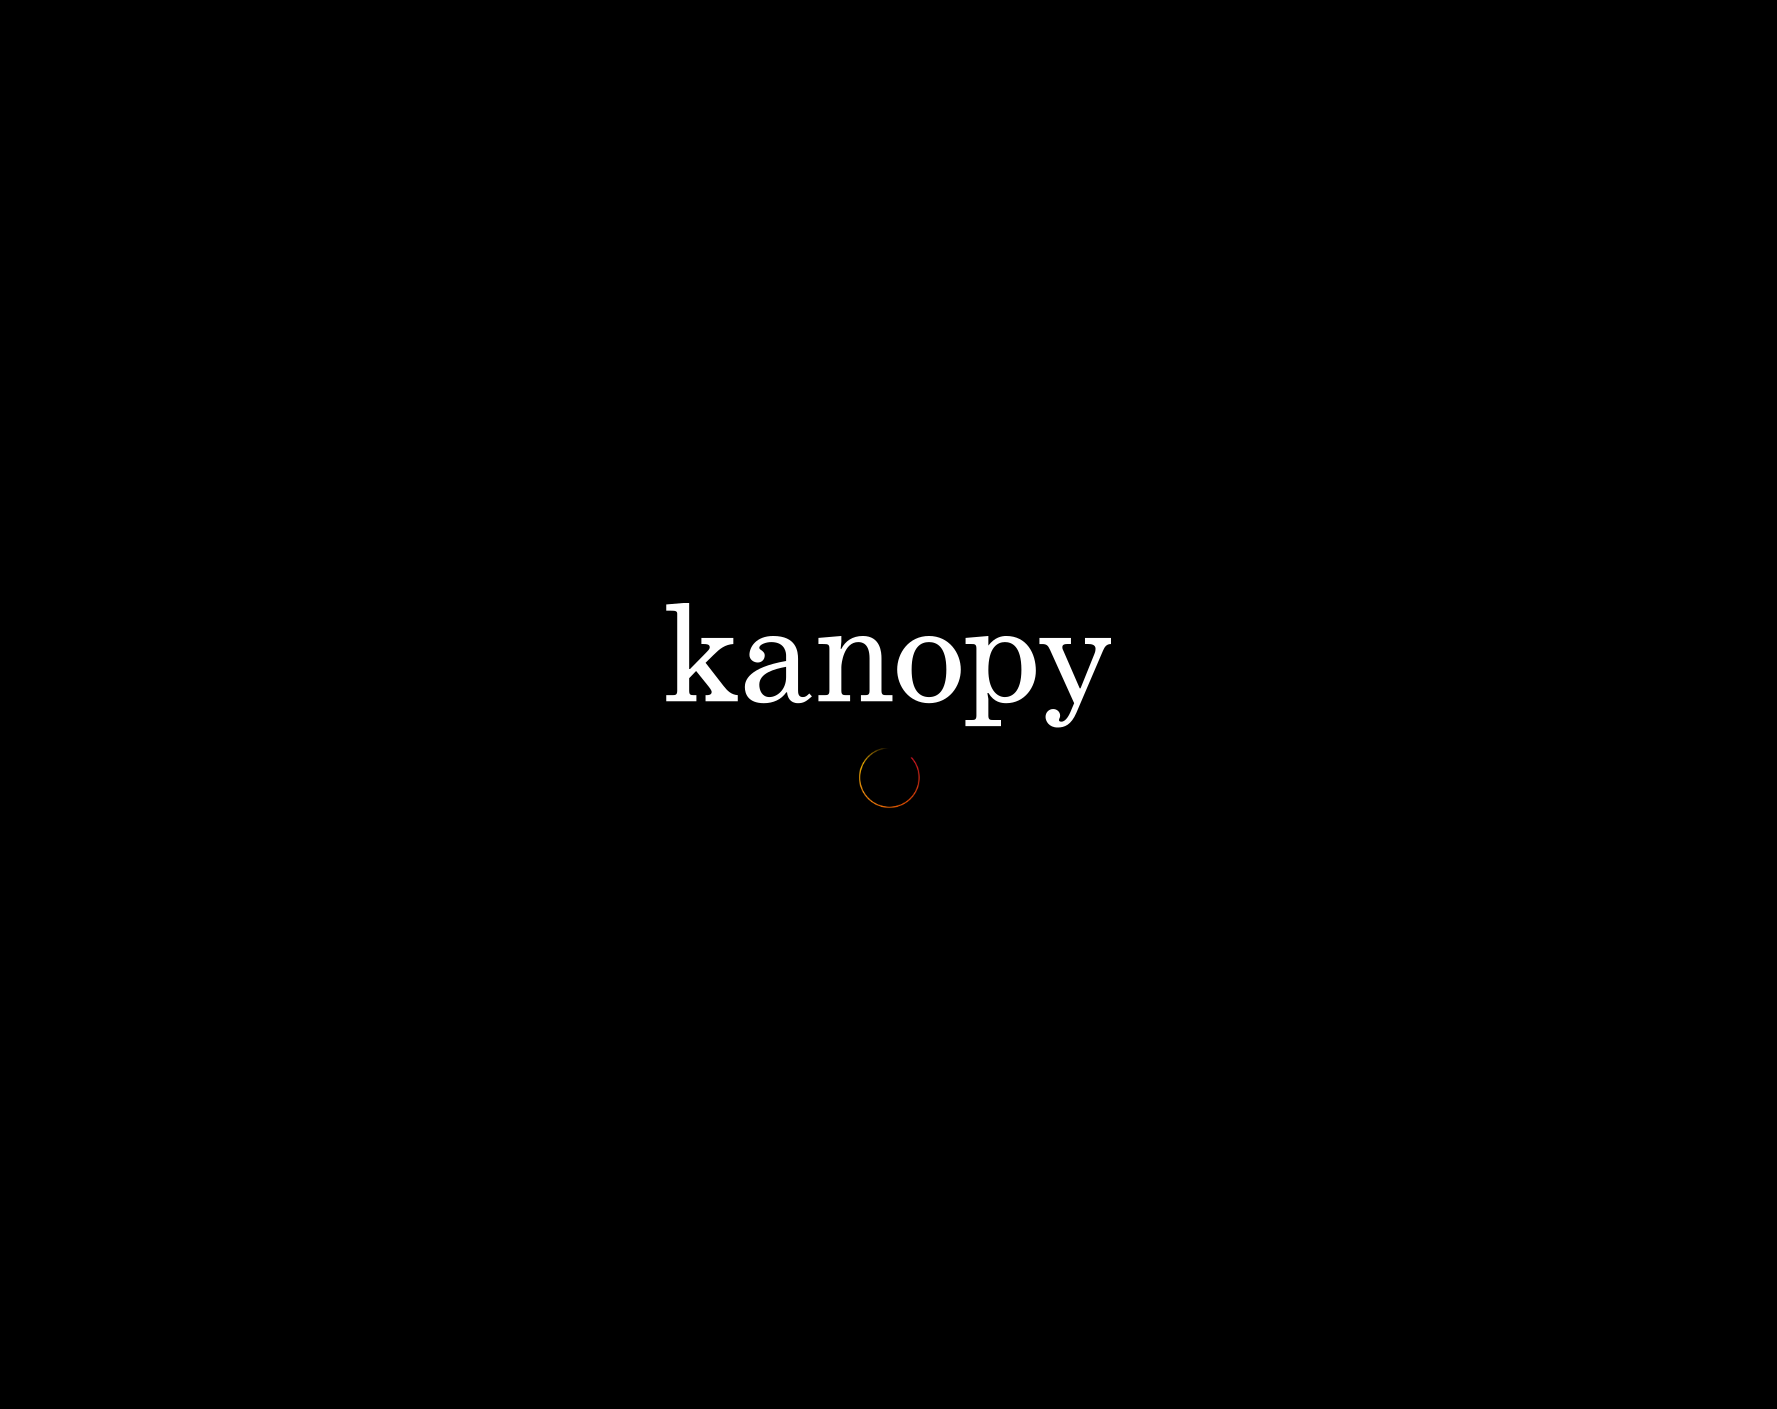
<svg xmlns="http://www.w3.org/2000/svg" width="1777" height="1409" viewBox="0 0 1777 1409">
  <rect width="100%" height="100%" fill="#000"/>
  <image x="666" y="603" width="445" height="125" href="images/1.png"/>
  <image x="859" y="748" width="61" height="61" href="images/2.png"/>
</svg>
